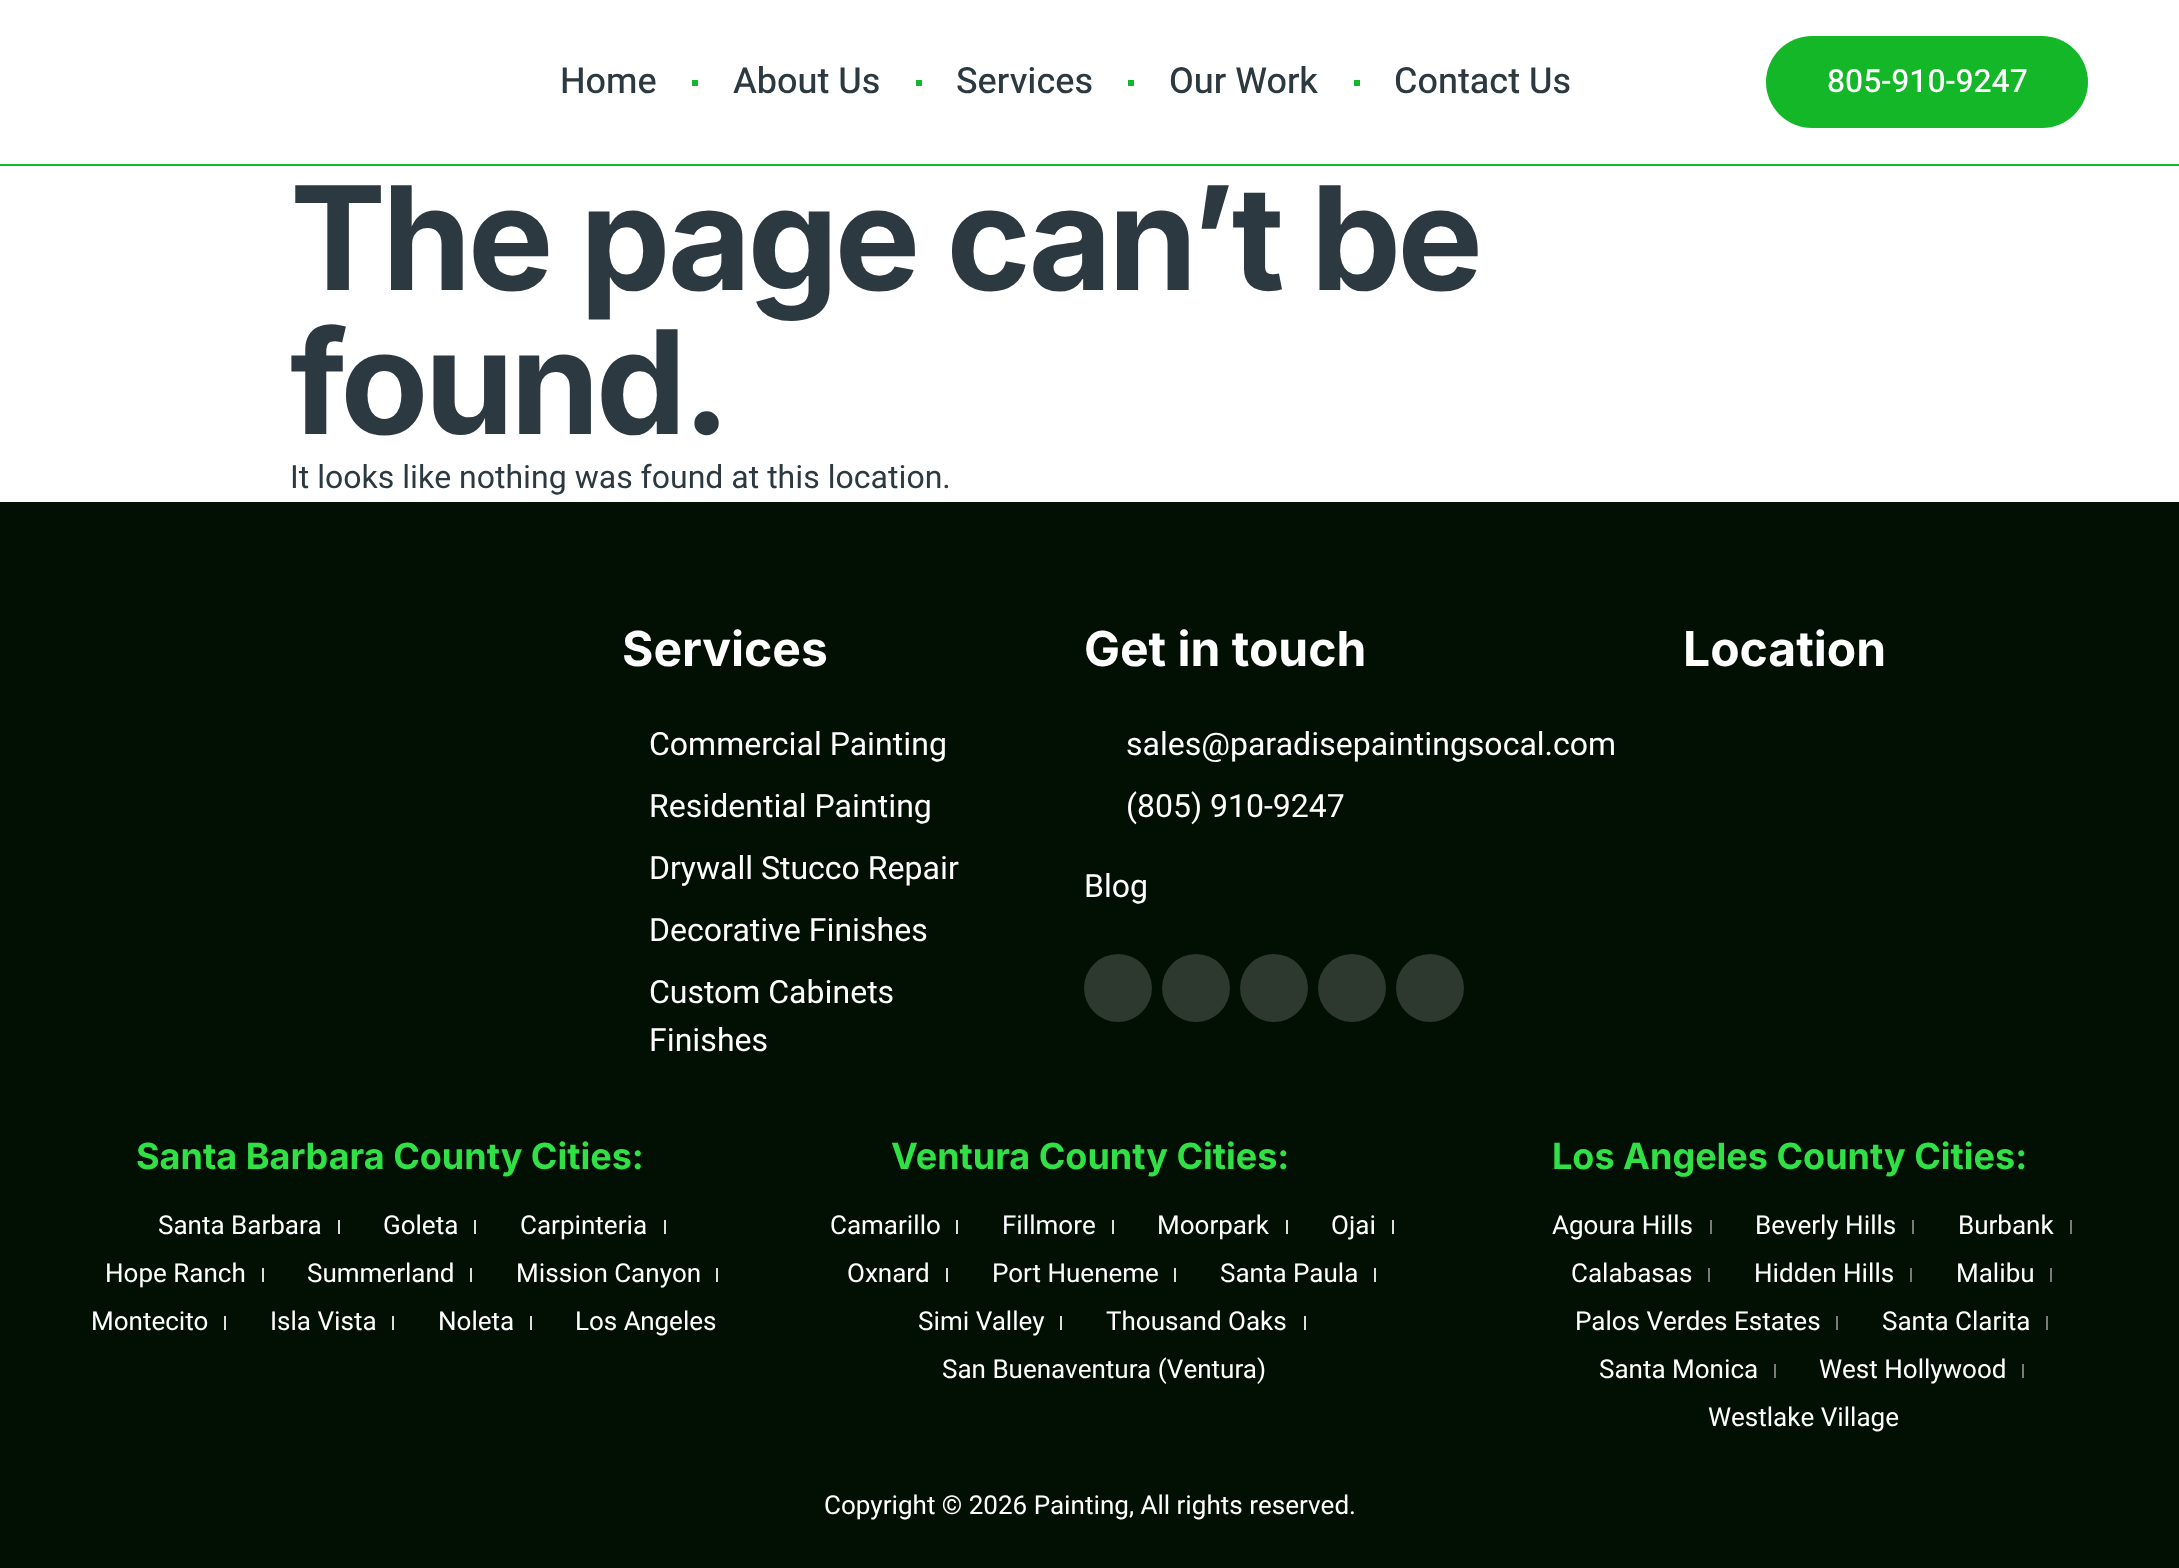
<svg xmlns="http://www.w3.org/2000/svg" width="2179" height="1568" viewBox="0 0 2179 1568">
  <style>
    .t1 { font: 500 36px Heebo; fill: #2c3941; }
    .t2 { font: 500 32px Heebo; fill: #fff; }
    .t3 { font: bold 144px Inter; letter-spacing: -4px; fill: #2c3941; }
    .t4 { font: 32px Heebo; fill: #2c3941; }
    .t5 { font: bold 48px Inter; fill: #fff; }
    .t6 { font: 32px Heebo; fill: #fff; }
    .t7 { font: bold 36px Inter; fill: #31e045; }
    .t8 { font: 26px Heebo; fill: #fff; }
  </style>
  <rect width="100%" height="100%" fill="#fff"/>
  <rect x="0" y="164" width="2179" height="2" fill="#14b727"/>
  <text x="560" y="93" class="t1">Home</text>
  <rect x="692" y="80" width="6" height="6" fill="#14b727"/>
  <text x="733" y="93" class="t1">About Us</text>
  <rect x="916" y="80" width="6" height="6" fill="#14b727"/>
  <text x="956" y="93" class="t1">Services</text>
  <rect x="1128" y="80" width="6" height="6" fill="#14b727"/>
  <text x="1169" y="93" class="t1">Our Work</text>
  <rect x="1354" y="80" width="6" height="6" fill="#14b727"/>
  <text x="1394" y="93" class="t1">Contact Us</text>
  <rect x="1766" y="36" width="322" height="92" rx="46" fill="#14b727"/>
  <text x="1827" y="92" class="t2">805-910-9247</text>
  <text x="290" y="290" class="t3">The page can’t be</text>
  <text x="290" y="434" class="t3">found.</text>
  <text x="290" y="488" class="t4">It looks like nothing was found at this location.</text>
  <rect x="0" y="502" width="2179" height="1066" fill="#020f03"/>
  <text x="622" y="666" class="t5">Services</text>
  <text x="649" y="755" class="t6">Commercial Painting</text>
  <text x="649" y="817" class="t6">Residential Painting</text>
  <text x="649" y="879" class="t6">Drywall Stucco Repair</text>
  <text x="649" y="941" class="t6">Decorative Finishes</text>
  <text x="649" y="1003" class="t6">Custom Cabinets</text>
  <text x="649" y="1051" class="t6">Finishes</text>
  <text x="1084" y="666" class="t5">Get in touch</text>
  <text x="1126" y="755" class="t6">sales@paradisepaintingsocal.com</text>
  <text x="1126" y="817" class="t6">(805) 910-9247</text>
  <text x="1084" y="897" class="t6">Blog</text>
  <circle cx="1118" cy="988" r="34" fill="#2d382e"/>
  <circle cx="1196" cy="988" r="34" fill="#2d382e"/>
  <circle cx="1274" cy="988" r="34" fill="#2d382e"/>
  <circle cx="1352" cy="988" r="34" fill="#2d382e"/>
  <circle cx="1430" cy="988" r="34" fill="#2d382e"/>
  <text x="1683" y="666" class="t5">Location</text>
  <text x="136" y="1169" class="t7">Santa Barbara County Cities:</text>
  <text x="158" y="1234" class="t8">Santa Barbara</text>
  <rect x="338" y="1220" width="2" height="14" fill="#ddd"/>
  <text x="383" y="1234" class="t8">Goleta</text>
  <rect x="474" y="1220" width="2" height="14" fill="#ddd"/>
  <text x="520" y="1234" class="t8">Carpinteria</text>
  <rect x="664" y="1220" width="2" height="14" fill="#ddd"/>
  <text x="105" y="1282" class="t8">Hope Ranch</text>
  <rect x="262" y="1268" width="2" height="14" fill="#ddd"/>
  <text x="307" y="1282" class="t8">Summerland</text>
  <rect x="470" y="1268" width="2" height="14" fill="#ddd"/>
  <text x="516" y="1282" class="t8">Mission Canyon</text>
  <rect x="716" y="1268" width="2" height="14" fill="#ddd"/>
  <text x="91" y="1330" class="t8">Montecito</text>
  <rect x="224" y="1316" width="2" height="14" fill="#ddd"/>
  <text x="270" y="1330" class="t8">Isla Vista</text>
  <rect x="392" y="1316" width="2" height="14" fill="#ddd"/>
  <text x="438" y="1330" class="t8">Noleta</text>
  <rect x="530" y="1316" width="2" height="14" fill="#ddd"/>
  <text x="575" y="1330" class="t8">Los Angeles</text>
  <text x="891" y="1169" class="t7">Ventura County Cities:</text>
  <text x="830" y="1234" class="t8">Camarillo</text>
  <rect x="956" y="1220" width="2" height="14" fill="#ddd"/>
  <text x="1002" y="1234" class="t8">Fillmore</text>
  <rect x="1112" y="1220" width="2" height="14" fill="#ddd"/>
  <text x="1157" y="1234" class="t8">Moorpark</text>
  <rect x="1286" y="1220" width="2" height="14" fill="#ddd"/>
  <text x="1331" y="1234" class="t8">Ojai</text>
  <rect x="1392" y="1220" width="2" height="14" fill="#ddd"/>
  <text x="847" y="1282" class="t8">Oxnard</text>
  <rect x="946" y="1268" width="2" height="14" fill="#ddd"/>
  <text x="992" y="1282" class="t8">Port Hueneme</text>
  <rect x="1174" y="1268" width="2" height="14" fill="#ddd"/>
  <text x="1220" y="1282" class="t8">Santa Paula</text>
  <rect x="1374" y="1268" width="2" height="14" fill="#ddd"/>
  <text x="918" y="1330" class="t8">Simi Valley</text>
  <rect x="1060" y="1316" width="2" height="14" fill="#ddd"/>
  <text x="1106" y="1330" class="t8">Thousand Oaks</text>
  <rect x="1304" y="1316" width="2" height="14" fill="#ddd"/>
  <text x="942" y="1378" class="t8">San Buenaventura (Ventura)</text>
  <text x="1552" y="1169" class="t7">Los Angeles County Cities:</text>
  <text x="1552" y="1234" class="t8">Agoura Hills</text>
  <rect x="1710" y="1220" width="2" height="14" fill="#7a7a7a"/>
  <text x="1755" y="1234" class="t8">Beverly Hills</text>
  <rect x="1912" y="1220" width="2" height="14" fill="#7a7a7a"/>
  <text x="1958" y="1234" class="t8">Burbank</text>
  <rect x="2070" y="1220" width="2" height="14" fill="#7a7a7a"/>
  <text x="1571" y="1282" class="t8">Calabasas</text>
  <rect x="1708" y="1268" width="2" height="14" fill="#7a7a7a"/>
  <text x="1754" y="1282" class="t8">Hidden Hills</text>
  <rect x="1910" y="1268" width="2" height="14" fill="#7a7a7a"/>
  <text x="1956" y="1282" class="t8">Malibu</text>
  <rect x="2050" y="1268" width="2" height="14" fill="#7a7a7a"/>
  <text x="1575" y="1330" class="t8">Palos Verdes Estates</text>
  <rect x="1836" y="1316" width="2" height="14" fill="#7a7a7a"/>
  <text x="1882" y="1330" class="t8">Santa Clarita</text>
  <rect x="2046" y="1316" width="2" height="14" fill="#7a7a7a"/>
  <text x="1599" y="1378" class="t8">Santa Monica</text>
  <rect x="1774" y="1364" width="2" height="14" fill="#7a7a7a"/>
  <text x="1819" y="1378" class="t8">West Hollywood</text>
  <rect x="2022" y="1364" width="2" height="14" fill="#7a7a7a"/>
  <text x="1708" y="1426" class="t8">Westlake Village</text>
  <text x="824" y="1514" class="t8">Copyright © 2026 Painting, All rights reserved.</text>
</svg>
